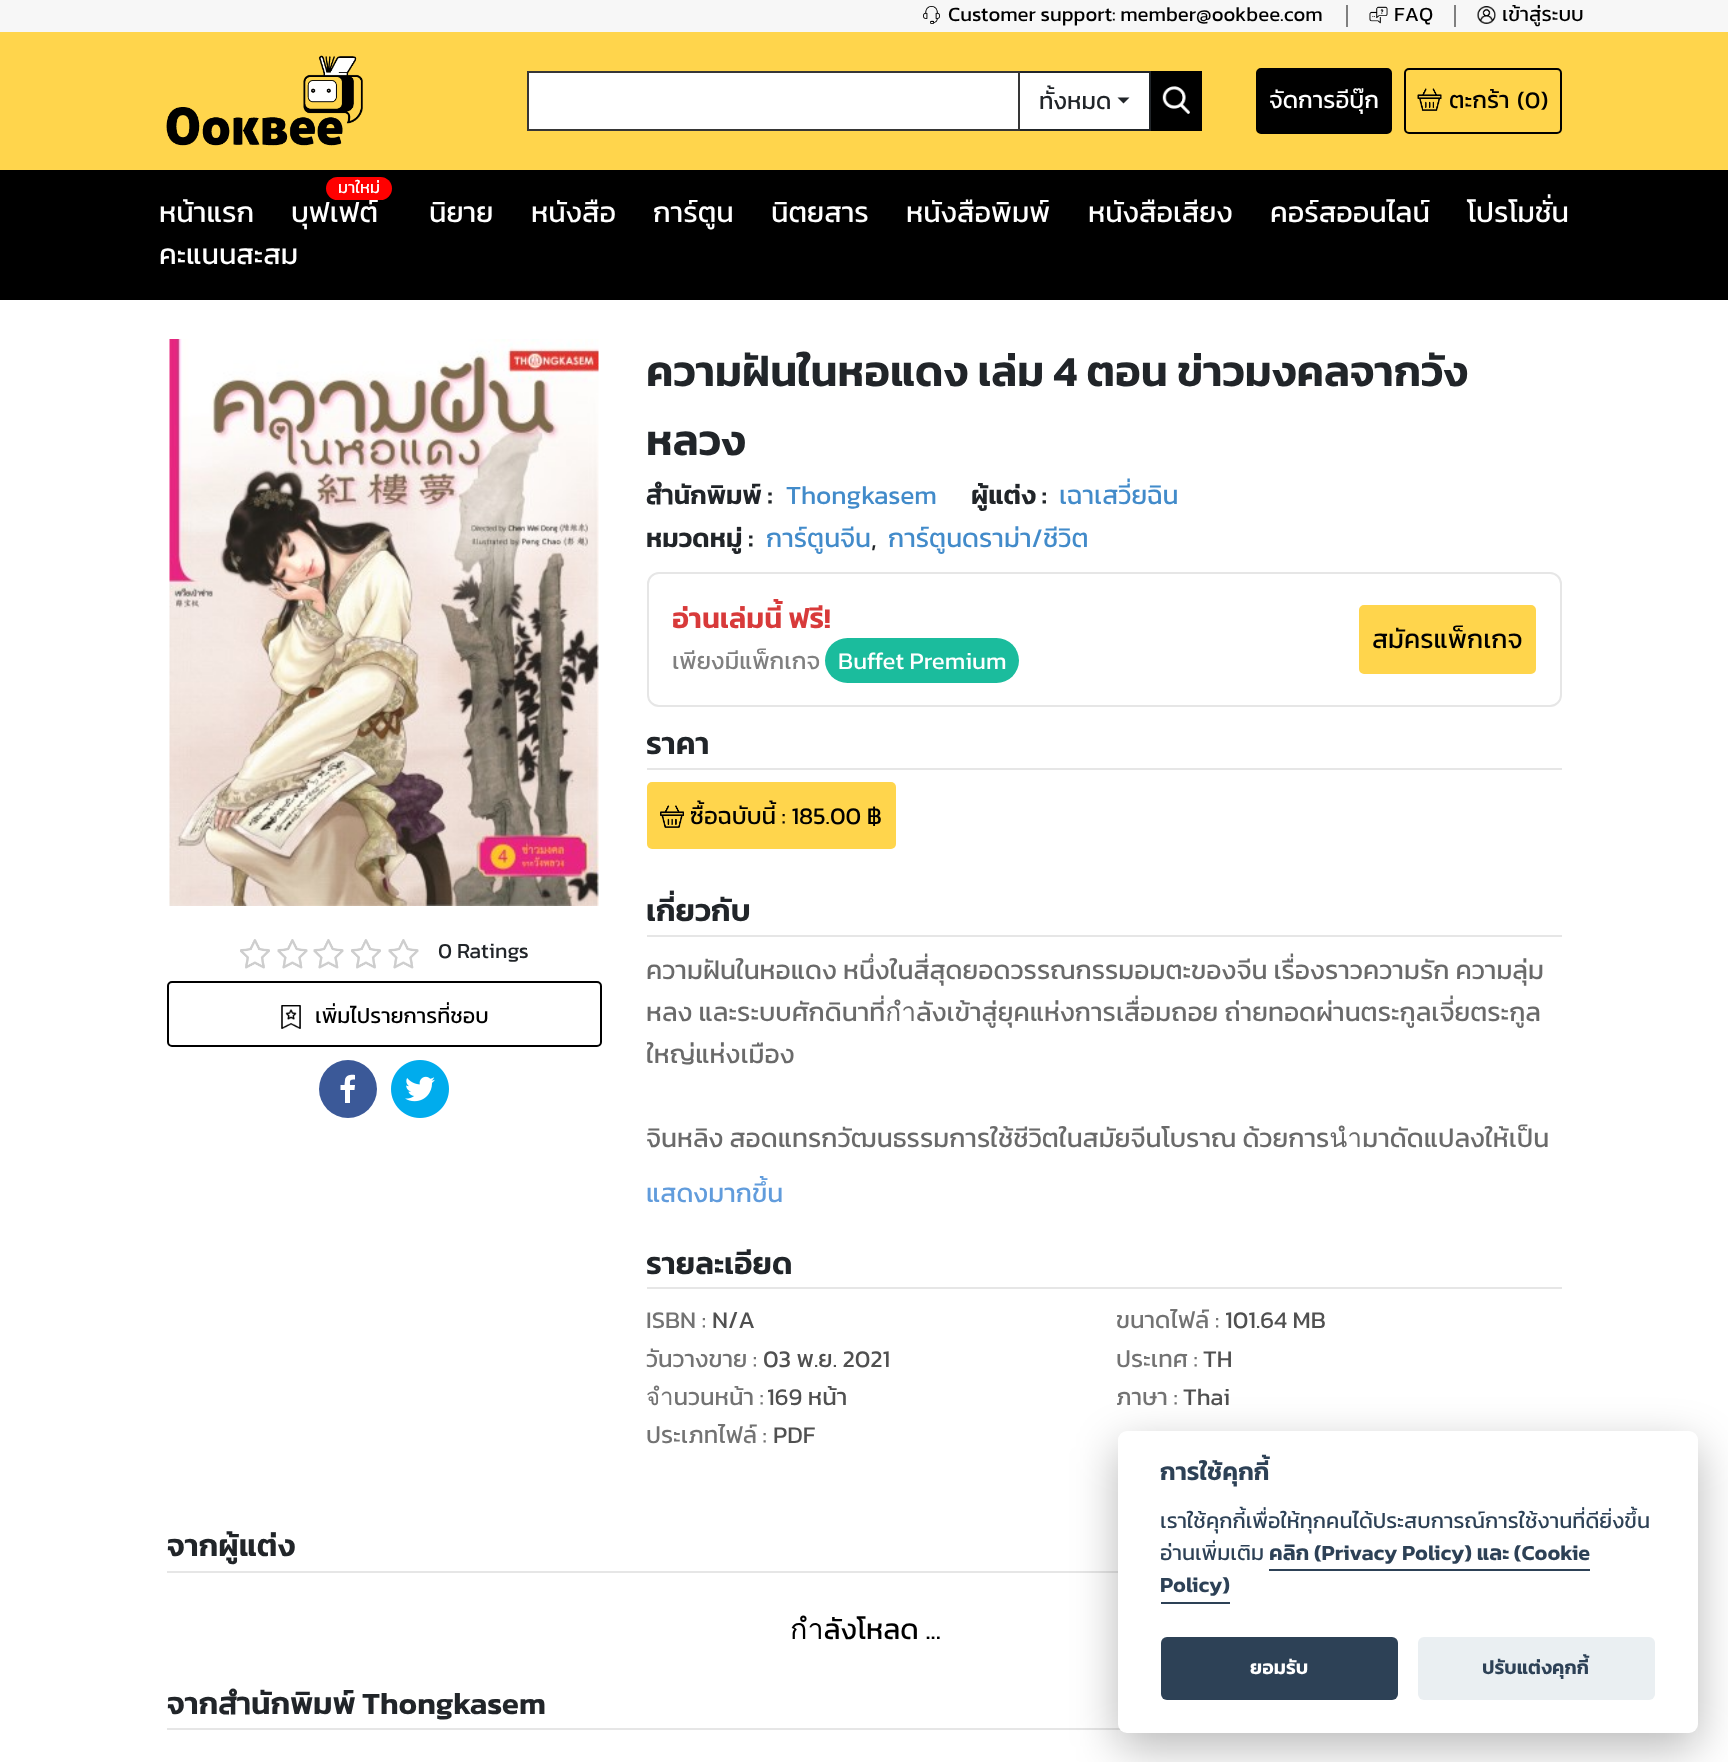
<svg xmlns="http://www.w3.org/2000/svg" width="1728" height="1762" viewBox="0 0 1728 1762">
  <style>
    .t1 { font: 20.4px Kanit; fill: #000; }
    .t2 { font: 24px Kanit; fill: #212529; }
    .t3 { font: 24px Kanit; fill: #fff; }
    .t4 { font: 24px Kanit; fill: #000; }
    .t5 { font: 28.75px Kanit; fill: #fff; }
    .t6 { font: 16.5px Kanit; fill: #fff; }
    .t7 { font: 21.6px Kanit; fill: #212529; }
    .t8 { font: 21.6px Kanit; fill: #000; }
    .t9 { font: 600 43.25px Kanit; fill: #212529; }
    .t10 { font: 600 26.4px Kanit; fill: #212529; }
    .t11 { font: 26.4px Kanit; fill: #428bca; }
    .t12 { font: 26.4px Kanit; fill: #212529; }
    .t13 { font: 600 28.75px Kanit; fill: #d83a3a; }
    .t14 { font: 24px Kanit; fill: #808080; }
    .t15 { font: 26.4px Kanit; fill: #000; }
    .t16 { font: 600 31.25px Kanit; fill: #212529; }
    .t17 { font: 26.4px Kanit; fill: #6a6a6a; }
    .t18 { font: 26.4px Kanit; fill: #619cdc; }
    .t19 { font: 24px Kanit; fill: #737373; }
    .t20 { font: 24px Kanit; fill: #505050; }
    .t21 { font: 28.75px Kanit; fill: #000; }
    .t22 { font: 600 25px Kanit; fill: #2d4156; }
    .t23 { font: 21.6px Kanit; fill: #2d4156; }
    .t24 { font: 600 21.6px Kanit; fill: #2d4156; }
    .t25 { font: 600 19.5px Kanit; fill: #fff; }
    .t26 { font: 600 19.5px Kanit; fill: #2d4156; }
  </style>
  <defs>
    <clipPath id="clip1"><rect x="647" y="948" width="915" height="212"/></clipPath>
  </defs>
  <rect width="100%" height="100%" fill="#fff"/>
  <rect x="0" y="0" width="1728" height="32" fill="#f7f7f7"/>
  <rect x="1346" y="5" width="2" height="22" fill="#808080"/>
  <image x="923" y="6" width="17" height="18" href="images/1.png"/>
  <text x="948" y="21" class="t1">Customer support: member@ookbee.com</text>
  <rect x="1454" y="5" width="2" height="22" fill="#808080"/>
  <image x="1369" y="6" width="19" height="18" href="images/2.png"/>
  <text x="1394" y="21" class="t1">FAQ</text>
  <image x="1477" y="6" width="19" height="18" href="images/3.png"/>
  <text x="1502" y="21" class="t1">เข้าสู่ระบบ</text>
  <rect x="0" y="32" width="1728" height="138" fill="#ffd54c"/>
  <image x="166" y="55" width="197" height="91" href="images/4.png"/>
  <rect x="528" y="72" width="491" height="58" fill="#fff" stroke="#363636" stroke-width="2"/>
  <rect x="1020" y="73" width="129" height="56" fill="#fff"/>
  <rect x="1020" y="71" width="131" height="2" fill="#212529"/>
  <rect x="1149" y="71" width="2" height="60" fill="#212529"/>
  <rect x="1020" y="129" width="131" height="2" fill="#212529"/>
  <text x="1039" y="109" class="t2">ทั้งหมด</text>
  <path d="M1117.5 97.5H1129.5L1123.5 103.5Z" fill="#212529"/>
  <rect x="1151" y="71" width="51" height="60" fill="#000"/>
  <image x="1162" y="86" width="28" height="28" href="images/5.png"/>
  <rect x="1257" y="69" width="134" height="64" rx="4" fill="#000" stroke="#000" stroke-width="2"/>
  <text x="1269" y="108" class="t3">จัดการอีบุ๊ก</text>
  <rect x="1405" y="69" width="156" height="64" rx="4" fill="none" stroke="#000" stroke-width="2"/>
  <image x="1417" y="88" width="25" height="23" href="images/6.png"/>
  <text x="1449" y="108" class="t4">ตะกร้า</text>
  <text x="1517" y="108" class="t4">(0)</text>
  <rect x="0" y="170" width="1728" height="130" fill="#000"/>
  <text x="159" y="222" class="t5">หน้าแรก</text>
  <text x="291" y="222" class="t5">บุฟเฟต์</text>
  <rect x="326" y="177" width="66" height="23" rx="11.5" fill="#f00"/>
  <text x="338" y="193" class="t6">มาใหม่</text>
  <text x="429" y="222" class="t5">นิยาย</text>
  <text x="531" y="222" class="t5">หนังสือ</text>
  <text x="653" y="222" class="t5">การ์ตูน</text>
  <text x="771" y="222" class="t5">นิตยสาร</text>
  <text x="906" y="222" class="t5">หนังสือพิมพ์</text>
  <text x="1088" y="222" class="t5">หนังสือเสียง</text>
  <text x="1270" y="222" class="t5">คอร์สออนไลน์</text>
  <text x="1467" y="222" class="t5">โปรโมชั่น</text>
  <text x="159" y="264" class="t5">คะแนนสะสม</text>
  <image x="169" y="339" width="430" height="567" href="images/7.png"/>
  <image x="240" y="939" width="30" height="30" href="images/8.png"/>
  <image x="277" y="939" width="31" height="30" href="images/9.png"/>
  <image x="313" y="939" width="31" height="30" href="images/10.png"/>
  <image x="351" y="939" width="30" height="30" href="images/11.png"/>
  <image x="388" y="939" width="31" height="30" href="images/10.png"/>
  <text x="438" y="958" class="t7">0 Ratings</text>
  <rect x="168" y="982" width="433" height="64" rx="4" fill="none" stroke="#000" stroke-width="2"/>
  <image x="281" y="1005" width="20" height="24" href="images/12.png"/>
  <text x="315" y="1023" class="t8">เพิ่มไปรายการที่ชอบ</text>
  <circle cx="348" cy="1089" r="29" fill="#3b5998"/>
  <path d="M350 1103V1090H354.5L355 1085H350C350 1080 349.5 1079.5 355 1079.5V1075C351 1074.5 345.5 1075 345 1080L344.5 1085H340.5V1090H345V1103Z" fill="#fff"/>
  <image x="391" y="1060" width="58" height="58" href="images/13.png"/>
  <text x="646" y="386" class="t9">ความฝันในหอแดง เล่ม 4 ตอน ข่าวมงคลจากวัง</text>
  <text x="646" y="455" class="t9">หลวง</text>
  <text x="646" y="504" class="t10">สำนักพิมพ์ :</text>
  <text x="786" y="504" class="t11">Thongkasem</text>
  <text x="971" y="504" class="t10">ผู้แต่ง :</text>
  <text x="1059" y="504" class="t11">เฉาเสวี่ยฉิน</text>
  <text x="646" y="547" class="t10">หมวดหมู่ :</text>
  <text x="766" y="547" class="t11">การ์ตูนจีน</text>
  <text x="871" y="547" class="t12">,</text>
  <text x="888" y="547" class="t11">การ์ตูนดราม่า/ชีวิต</text>
  <rect x="648" y="573" width="913" height="133" rx="11" fill="none" stroke="#e6e6e6" stroke-width="2"/>
  <text x="672" y="628" class="t13">อ่านเล่มนี้ ฟรี!</text>
  <text x="672" y="669" class="t14">เพียงมีแพ็กเกจ</text>
  <rect x="825" y="638" width="194" height="45" rx="22.5" fill="#1bbc9d"/>
  <text x="838" y="669" class="t3">Buffet Premium</text>
  <rect x="1360" y="606" width="175" height="67" rx="4" fill="#ffd54c" stroke="#ffd54c" stroke-width="2"/>
  <text x="1372" y="648" class="t15">สมัครแพ็กเกจ</text>
  <rect x="647" y="768" width="915" height="2" fill="#e6e6e6"/>
  <text x="646" y="754" class="t16">ราคา</text>
  <rect x="647" y="782" width="249" height="67" rx="5" fill="#ffd54c"/>
  <image x="660" y="805" width="24" height="23" href="images/14.png"/>
  <text x="690" y="824" class="t4">ซื้อฉบับนี้ : 185.00 ฿</text>
  <rect x="647" y="935" width="915" height="2" fill="#e6e6e6"/>
  <text x="646" y="921" class="t16">เกี่ยวกับ</text>
  <text x="646" y="979" class="t17">ความฝันในหอแดง หนึ่งในสี่สุดยอดวรรณกรรมอมตะของจีน เรื่องราวความรัก ความลุ่ม</text>
  <text x="646" y="1021" class="t17">หลง และระบบศักดินาที่กำลังเข้าสู่ยุคแห่งการเสื่อมถอย ถ่ายทอดผ่านตระกูลเจี่ยตระกูล</text>
  <g clip-path="url(#clip1)">
    <text x="646" y="1063" class="t17">ใหญ่แห่งเมือง</text>
    <text x="646" y="1147" class="t17">จินหลิง สอดแทรกวัฒนธรรมการใช้ชีวิตในสมัยจีนโบราณ ด้วยการนำมาดัดแปลงให้เป็น</text>
  </g>
  <text x="646" y="1202" class="t18">แสดงมากขึ้น</text>
  <rect x="647" y="1287" width="915" height="2" fill="#e6e6e6"/>
  <text x="646" y="1274" class="t16">รายละเอียด</text>
  <text x="646" y="1328" class="t19">ISBN :</text>
  <text x="712" y="1328" class="t20">N/A</text>
  <text x="1116" y="1328" class="t19">ขนาดไฟล์ :</text>
  <text x="1225" y="1328" class="t20">101.64 MB</text>
  <text x="646" y="1367" class="t19">วันวางขาย :</text>
  <text x="763" y="1367" class="t20">03 พ.ย. 2021</text>
  <text x="1116" y="1367" class="t19">ประเทศ :</text>
  <text x="1203" y="1367" class="t20">TH</text>
  <text x="646" y="1405" class="t19">จำนวนหน้า :</text>
  <text x="767" y="1405" class="t20">169 หน้า</text>
  <text x="1116" y="1405" class="t19">ภาษา :</text>
  <text x="1183" y="1405" class="t20">Thai</text>
  <text x="646" y="1443" class="t19">ประเภทไฟล์ :</text>
  <text x="773" y="1443" class="t20">PDF</text>
  <rect x="167" y="1571" width="951" height="2" fill="#e6e6e6"/>
  <text x="167" y="1556" class="t16">จากผู้แต่ง</text>
  <text x="790" y="1639" class="t21">กำลังโหลด ...</text>
  <rect x="167" y="1728" width="954" height="2" fill="#e6e6e6"/>
  <text x="167" y="1714" class="t16">จากสำนักพิมพ์ Thongkasem</text>
  <rect x="1118" y="1446" width="580" height="302" rx="9" fill="#02020347" filter="blur(22.5px)"/>
  <rect x="1118" y="1431" width="580" height="302" rx="9" fill="#fff"/>
  <text x="1160" y="1480" class="t22">การใช้คุกกี้</text>
  <text x="1160" y="1528" class="t23">เราใช้คุกกี้เพื่อให้ทุกคนได้ประสบการณ์การใช้งานที่ดียิ่งขึ้น</text>
  <text x="1160" y="1560" class="t23">อ่านเพิ่มเติม</text>
  <text x="1269" y="1560" class="t24">คลิก (Privacy Policy) และ (Cookie</text>
  <rect x="1269" y="1569" width="321" height="2" fill="#2d4156"/>
  <text x="1160" y="1592" class="t24">Policy)</text>
  <rect x="1161" y="1602" width="69" height="2" fill="#2d4156"/>
  <rect x="1161" y="1637" width="237" height="63" rx="6" fill="#2d4156"/>
  <text x="1250" y="1674" class="t25">ยอมรับ</text>
  <rect x="1418" y="1637" width="237" height="63" rx="6" fill="#eaeff2"/>
  <text x="1482" y="1674" class="t26">ปรับแต่งคุกกี้</text>
</svg>
